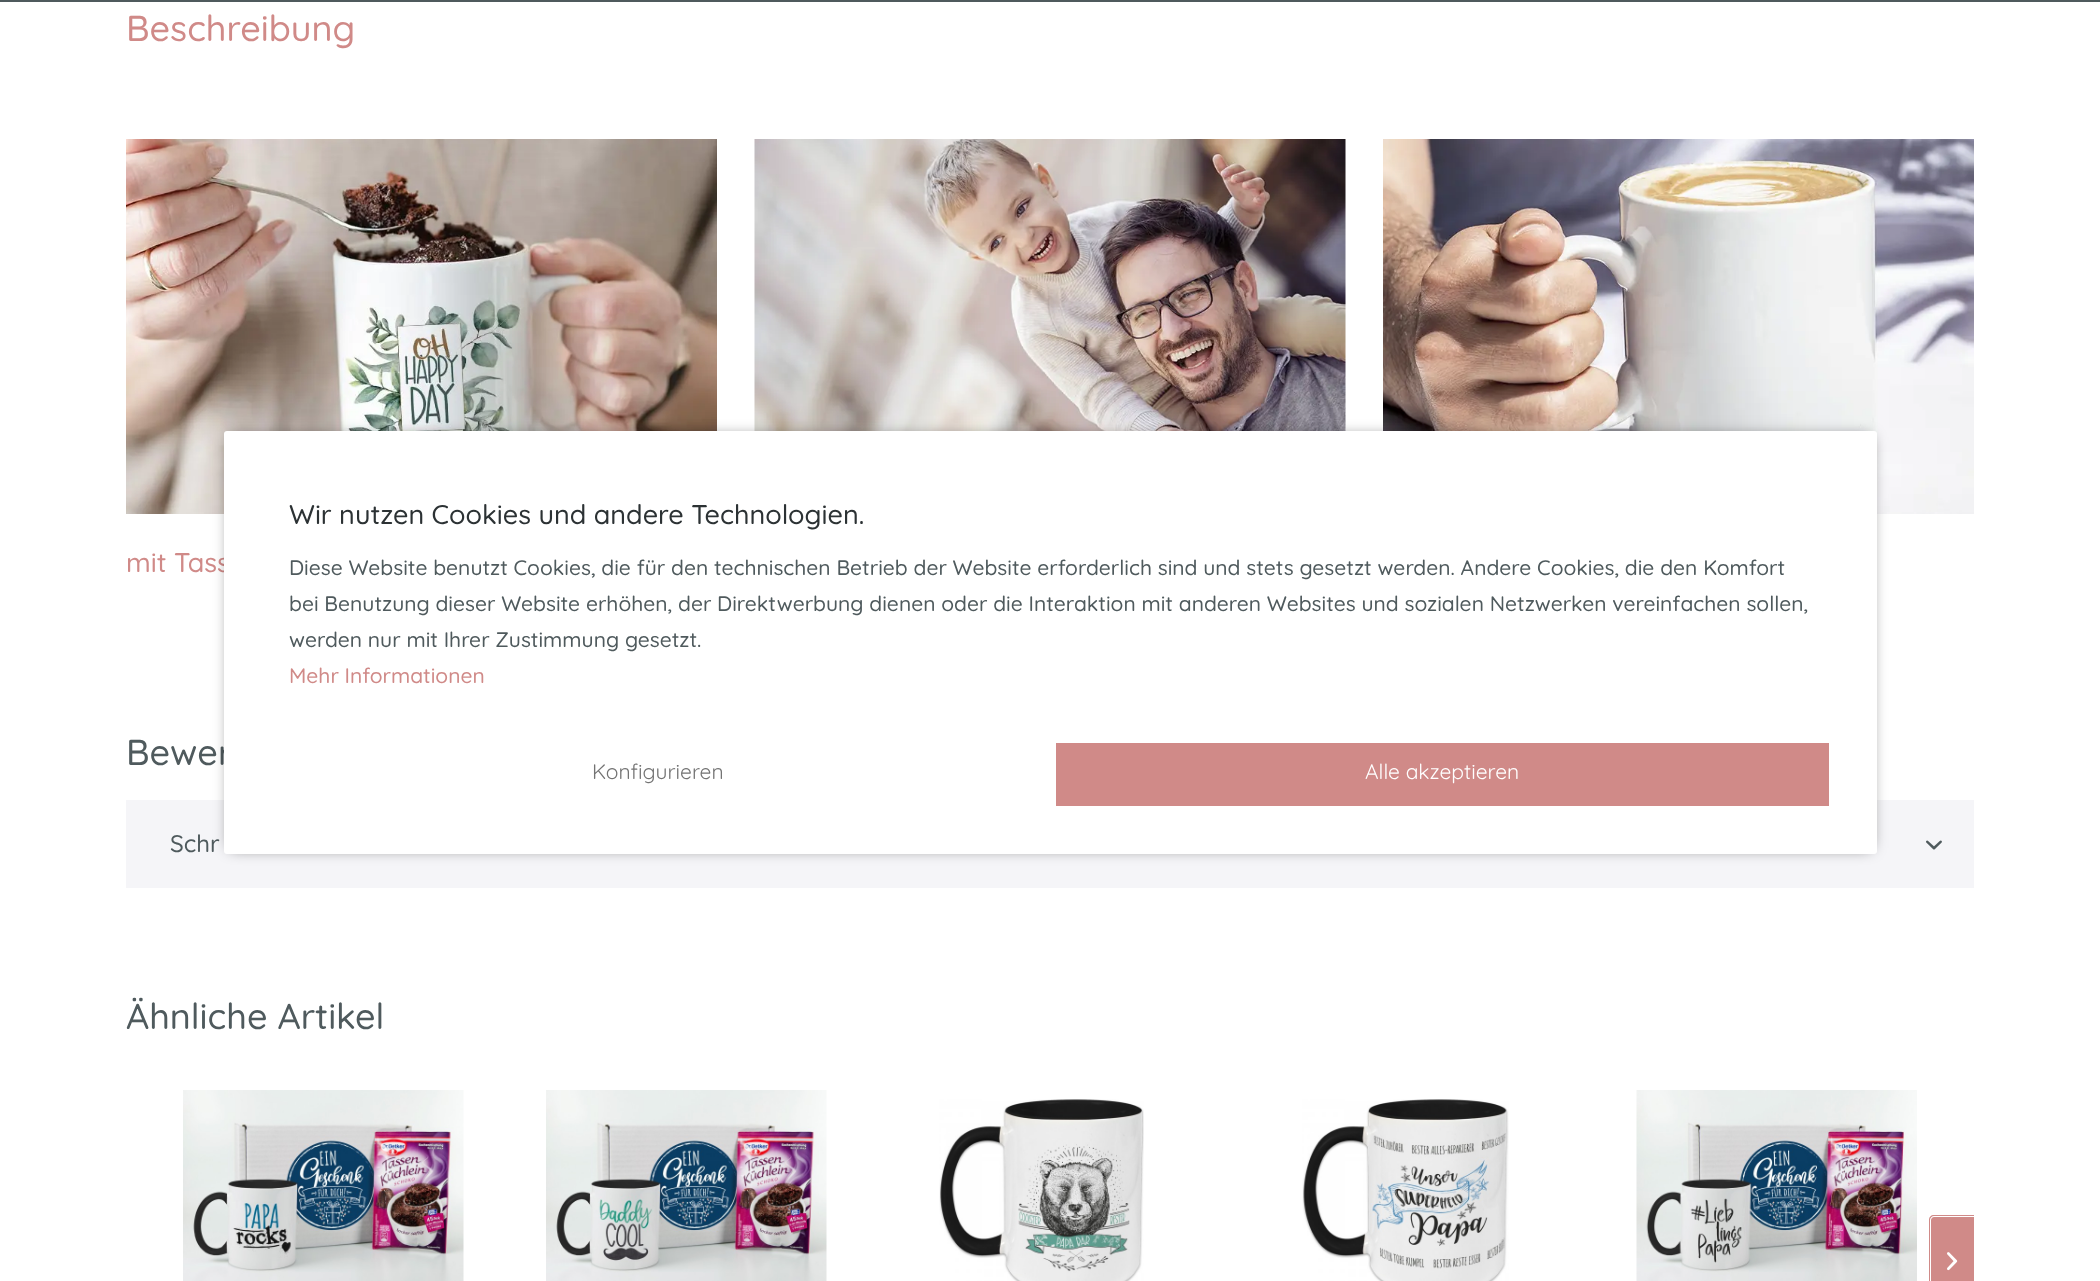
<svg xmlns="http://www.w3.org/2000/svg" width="2100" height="1281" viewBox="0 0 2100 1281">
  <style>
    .t1 { font: 300 36px Quicksand; fill: #d08a88; }
    .t2 { font: 300 27px Quicksand; fill: #d08a88; }
    .t3 { font: 300 36px Quicksand; fill: #4f5a5d; }
    .t4 { font: 300 24px Quicksand; fill: #4f5a5d; }
    .t5 { font: 300 27px Quicksand; fill: #2c3234; }
    .t6 { font: 300 21px Quicksand; fill: #4f5a5d; }
    .t7 { font: 300 21px Quicksand; fill: #d08a88; }
    .t8 { font: 300 21px 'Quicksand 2'; fill: #737373; }
    .t9 { font: 300 21px 'Quicksand 2'; fill: #fff; }
  </style>
  <rect width="100%" height="100%" fill="#fff"/>
  <text x="126" y="41" class="t1">Beschreibung</text>
  <image x="754" y="139" width="592" height="292" href="images/1.png"/>
  <image x="1383" y="139" width="591" height="375" href="images/2.png"/>
  <image x="126" y="139" width="591" height="375" href="images/3.png"/>
  <text x="126" y="572" class="t2">mit Tass</text>
  <text x="126" y="765" class="t3">Bewer</text>
  <rect x="126" y="800" width="1848" height="88" fill="#f5f5f8"/>
  <text x="170" y="852" class="t4">Schr</text>
  <image x="1926" y="840" width="16" height="10" href="images/4.png"/>
  <text x="126" y="1029" class="t3">Ähnliche Artikel</text>
  <image x="183" y="1090" width="281" height="191" href="images/5.png"/>
  <image x="546" y="1090" width="281" height="191" href="images/6.png"/>
  <image x="939" y="1099" width="205" height="182" href="images/7.png"/>
  <image x="1302" y="1099" width="207" height="182" href="images/8.png"/>
  <image x="1636" y="1090" width="281" height="191" href="images/9.png"/>
  <path d="M1934 1217H1974V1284H1934C1932.5 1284 1931 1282.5 1931 1281V1220C1931 1218.5 1932.5 1217 1934 1217Z" fill="#d08a88"/>
  <path d="M1934 1215H1974V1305H1934C1931 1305 1929 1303 1929 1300V1220C1929 1217 1931 1215 1934 1215ZM1934 1216H1974V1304H1934C1932 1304 1930 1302 1930 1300V1220C1930 1218 1932 1216 1934 1216Z" fill="#d08a88" fill-rule="evenodd"/>
  <image x="1947" y="1252" width="11" height="19" href="images/10.png"/>
  <rect x="0" y="0" width="2100" height="2" fill="#4f5a5d"/>
  <rect x="230" y="437" width="1641" height="411" fill="#00000099" filter="blur(7.5px)"/>
  <rect x="224" y="431" width="1653" height="423" rx="3" fill="#fff"/>
  <text x="289" y="524" class="t5">Wir nutzen Cookies und andere Technologien.</text>
  <text x="289" y="575" class="t6">Diese Website benutzt Cookies, die für den technischen Betrieb der Website erforderlich sind und stets gesetzt werden. Andere Cookies, die den Komfort</text>
  <text x="289" y="611" class="t6">bei Benutzung dieser Website erhöhen, der Direktwerbung dienen oder die Interaktion mit anderen Websites und sozialen Netzwerken vereinfachen sollen,</text>
  <text x="289" y="647" class="t6">werden nur mit Ihrer Zustimmung gesetzt.</text>
  <text x="289" y="683" class="t7">Mehr Informationen</text>
  <text x="592" y="779" class="t8">Konfigurieren</text>
  <rect x="1056" y="743" width="773" height="63" fill="#d08a88"/>
  <text x="1365" y="779" class="t9">Alle akzeptieren</text>
</svg>
